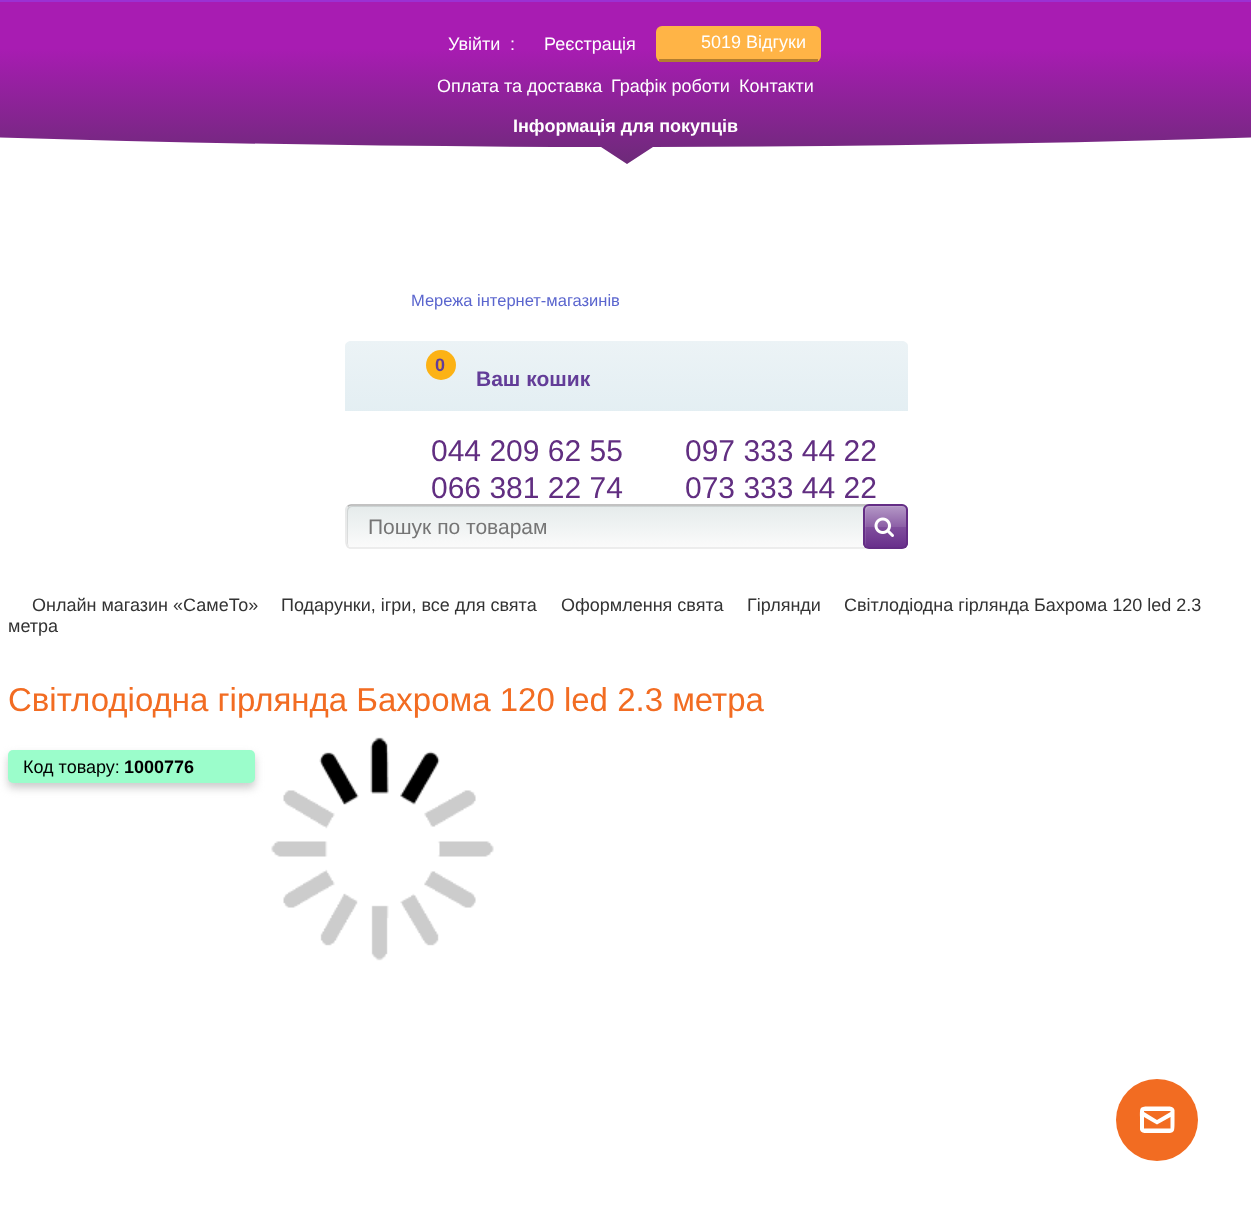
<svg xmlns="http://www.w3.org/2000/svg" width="1251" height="1220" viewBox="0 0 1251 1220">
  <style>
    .t1 { font: 18px Liberation Sans; fill: #fff; }
    .t2 { font: bold 18px Liberation Sans; fill: #fff; }
    .t3 { font: 16.5px Liberation Sans; fill: #5a65ce; }
    .t4 { font: bold 18px Liberation Sans; fill: #633d98; }
    .t5 { font: bold 21px Liberation Sans; fill: #633d98; }
    .t6 { font: 30px Liberation Sans; fill: #612e81; }
    .t7 { font: 21px Liberation Sans; fill: #757575; }
    .t8 { font: 18px Liberation Sans; fill: #333; }
    .t9 { font: 33px Liberation Sans; fill: #f26c22; }
    .t10 { font: 18px Liberation Sans; fill: #000; }
    .t11 { font: bold 18px Liberation Sans; fill: #000; }
  </style>
  <defs>
    <linearGradient id="g1" gradientUnits="userSpaceOnUse" x1="-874" y1="-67" x2="-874" y2="164"><stop offset="0.5" stop-color="#a81cb2"/><stop offset="1" stop-color="#6d2a79"/></linearGradient>
    <clipPath id="clip1"><rect x="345" y="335" width="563" height="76"/></clipPath>
    <linearGradient id="g2" gradientUnits="userSpaceOnUse" x1="626" y1="340" x2="626" y2="449"><stop offset="0" stop-color="#ecf3f6"/><stop offset="1" stop-color="#dfecf1"/></linearGradient>
    <clipPath id="clip2"><rect x="345" y="504" width="563" height="45" rx="6"/></clipPath>
    <linearGradient id="g3" gradientUnits="userSpaceOnUse" x1="626" y1="464" x2="626" y2="506"><stop offset="0" stop-color="#e5ebeb"/><stop offset="1" stop-color="#fbfbfb"/></linearGradient>
    <linearGradient id="g4" gradientUnits="userSpaceOnUse" x1="626" y1="506" x2="626" y2="548"><stop offset="0" stop-color="#e5ebeb"/><stop offset="1" stop-color="#fbfbfb"/></linearGradient>
    <clipPath id="clip3"><rect x="863" y="504" width="45" height="45" rx="6"/></clipPath>
    <linearGradient id="g5" gradientUnits="userSpaceOnUse" x1="885" y1="506" x2="885" y2="548"><stop offset="0" stop-color="#b498c6"/><stop offset="0.5" stop-color="#8c5fa6"/><stop offset="0.51" stop-color="#7f4d9c"/><stop offset="1" stop-color="#682e8b"/></linearGradient>
  </defs>
  <rect width="100%" height="100%" fill="#fff"/>
  <path d="M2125-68H-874V84C-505 122 19 146 601 147L627 164L653 147C1233 146 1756 122 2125 84Z" fill="url(#g1)"/>
  <rect x="0" y="0" width="1251" height="2" fill="#9b31d3"/>
  <text x="448" y="50" class="t1">Увійти</text>
  <text x="510" y="50" class="t1">:</text>
  <text x="544" y="50" class="t1">Реєстрація</text>
  <rect x="656" y="26" width="165" height="36" rx="6" fill="#ffb446"/>
  <rect x="659" y="59" width="159" height="3" fill="#b37d2f"/>
  <text x="701" y="48" class="t1">5019 Відгуки</text>
  <text x="437" y="92" class="t1">Оплата та доставка</text>
  <text x="611" y="92" class="t1">Графік роботи</text>
  <text x="739" y="92" class="t1">Контакти</text>
  <text x="513" y="132" class="t2">Інформація для покупців</text>
  <text x="411" y="306" class="t3">Мережа інтернет-магазинів</text>
  <g clip-path="url(#clip1)">
    <rect x="345" y="344" width="563" height="108" rx="6" fill="#00000033" filter="blur(1.5px)"/>
  </g>
  <path d="M351 341H902C905.5 341 908 343.5 908 347V411H345V347C345 343.5 347.5 341 351 341Z" fill="url(#g2)"/>
  <circle cx="441" cy="365" r="15" fill="#fcb215"/>
  <text x="435" y="371" class="t4">0</text>
  <text x="476" y="386" class="t5">Ваш кошик</text>
  <text x="431" y="461" class="t6">044 209 62 55</text>
  <text x="685" y="461" class="t6">097 333 44 22</text>
  <text x="431" y="498" class="t6">066 381 22 74</text>
  <text x="685" y="498" class="t6">073 333 44 22</text>
  <g clip-path="url(#clip2)">
    <rect x="345" y="504" width="563" height="2" fill="url(#g3)"/>
    <rect x="345" y="506" width="563" height="42" fill="url(#g4)"/>
  </g>
  <path d="M352 507H904C903 506 902 506 901 506H352C349 506 347 508 347 511V543C347 544 348 546 349 547L348 544V512C348 509 350 507 352 507Z" fill="#0000001a"/>
  <path d="M347.5 506.5C348.5 505.5 349.5 505 351 505H901.5C903 505 904 505.5 905 506.5" fill="none" stroke="#b0b0b0" stroke-width="1.5"/>
  <path d="M905 506.5C907.5 508.5 907 512.5 907 515.5V537.5C907 541 907.5 546.5 903 548H349.5C345 546.5 346 541 346 537.5V515.5C346 512.5 345 508.5 347.5 506.5" fill="none" stroke="#e8e8e8" stroke-width="1.5"/>
  <text x="368" y="534" class="t7">Пошук по товарам</text>
  <g clip-path="url(#clip3)">
    <rect x="863" y="506" width="45" height="42" fill="url(#g5)"/>
  </g>
  <path d="M870 507H904C903 506 902 506 901 506H869C866 506 864 508 864 511V543C864 545 865 547 867 548C867 547 866 546 866 544V512C866 509 868 507 870 507Z" fill="#ffffff1a"/>
  <rect x="864" y="505" width="43" height="43" rx="5" fill="none" stroke="#642d85" stroke-width="2"/>
  <image x="874" y="517" width="20" height="20" href="images/1.png"/>
  <text x="32" y="611" class="t8">Онлайн магазин «СамеТо»</text>
  <text x="281" y="611" class="t8">Подарунки, ігри, все для свята</text>
  <text x="561" y="611" class="t8">Оформлення свята</text>
  <text x="747" y="611" class="t8">Гірлянди</text>
  <text x="844" y="611" class="t8">Світлодіодна гірлянда Бахрома 120 led 2.3</text>
  <text x="8" y="632" class="t8">метра</text>
  <text x="8" y="711" class="t9">Світлодіодна гірлянда Бахрома 120 led 2.3 метра</text>
  <rect x="8" y="755" width="247" height="33" rx="5" fill="#ccc" filter="blur(4px)"/>
  <rect x="8" y="750" width="247" height="33" rx="5" fill="#9bfdcb"/>
  <text x="23" y="773" class="t10">Код товару:</text>
  <text x="124" y="773" class="t11">1000776</text>
  <image x="271" y="737" width="223" height="224" href="images/2.png"/>
  <circle cx="1157" cy="1120" r="41" fill="#f26c22"/>
  <path d="M1174.5 1110C1173.5 1106 1168.5 1106.5 1166 1106.5H1153C1139.5 1106.5 1140 1106 1140 1117V1129.5C1141 1133.5 1145.5 1133 1148.5 1133H1161.5C1174.5 1133 1174.5 1134 1174.5 1121.5ZM1144 1111H1170.5V1112L1157 1120L1144 1112ZM1170.5 1128.5H1144V1117L1157 1124.5L1170.5 1117Z" fill="#fff"/>
</svg>
